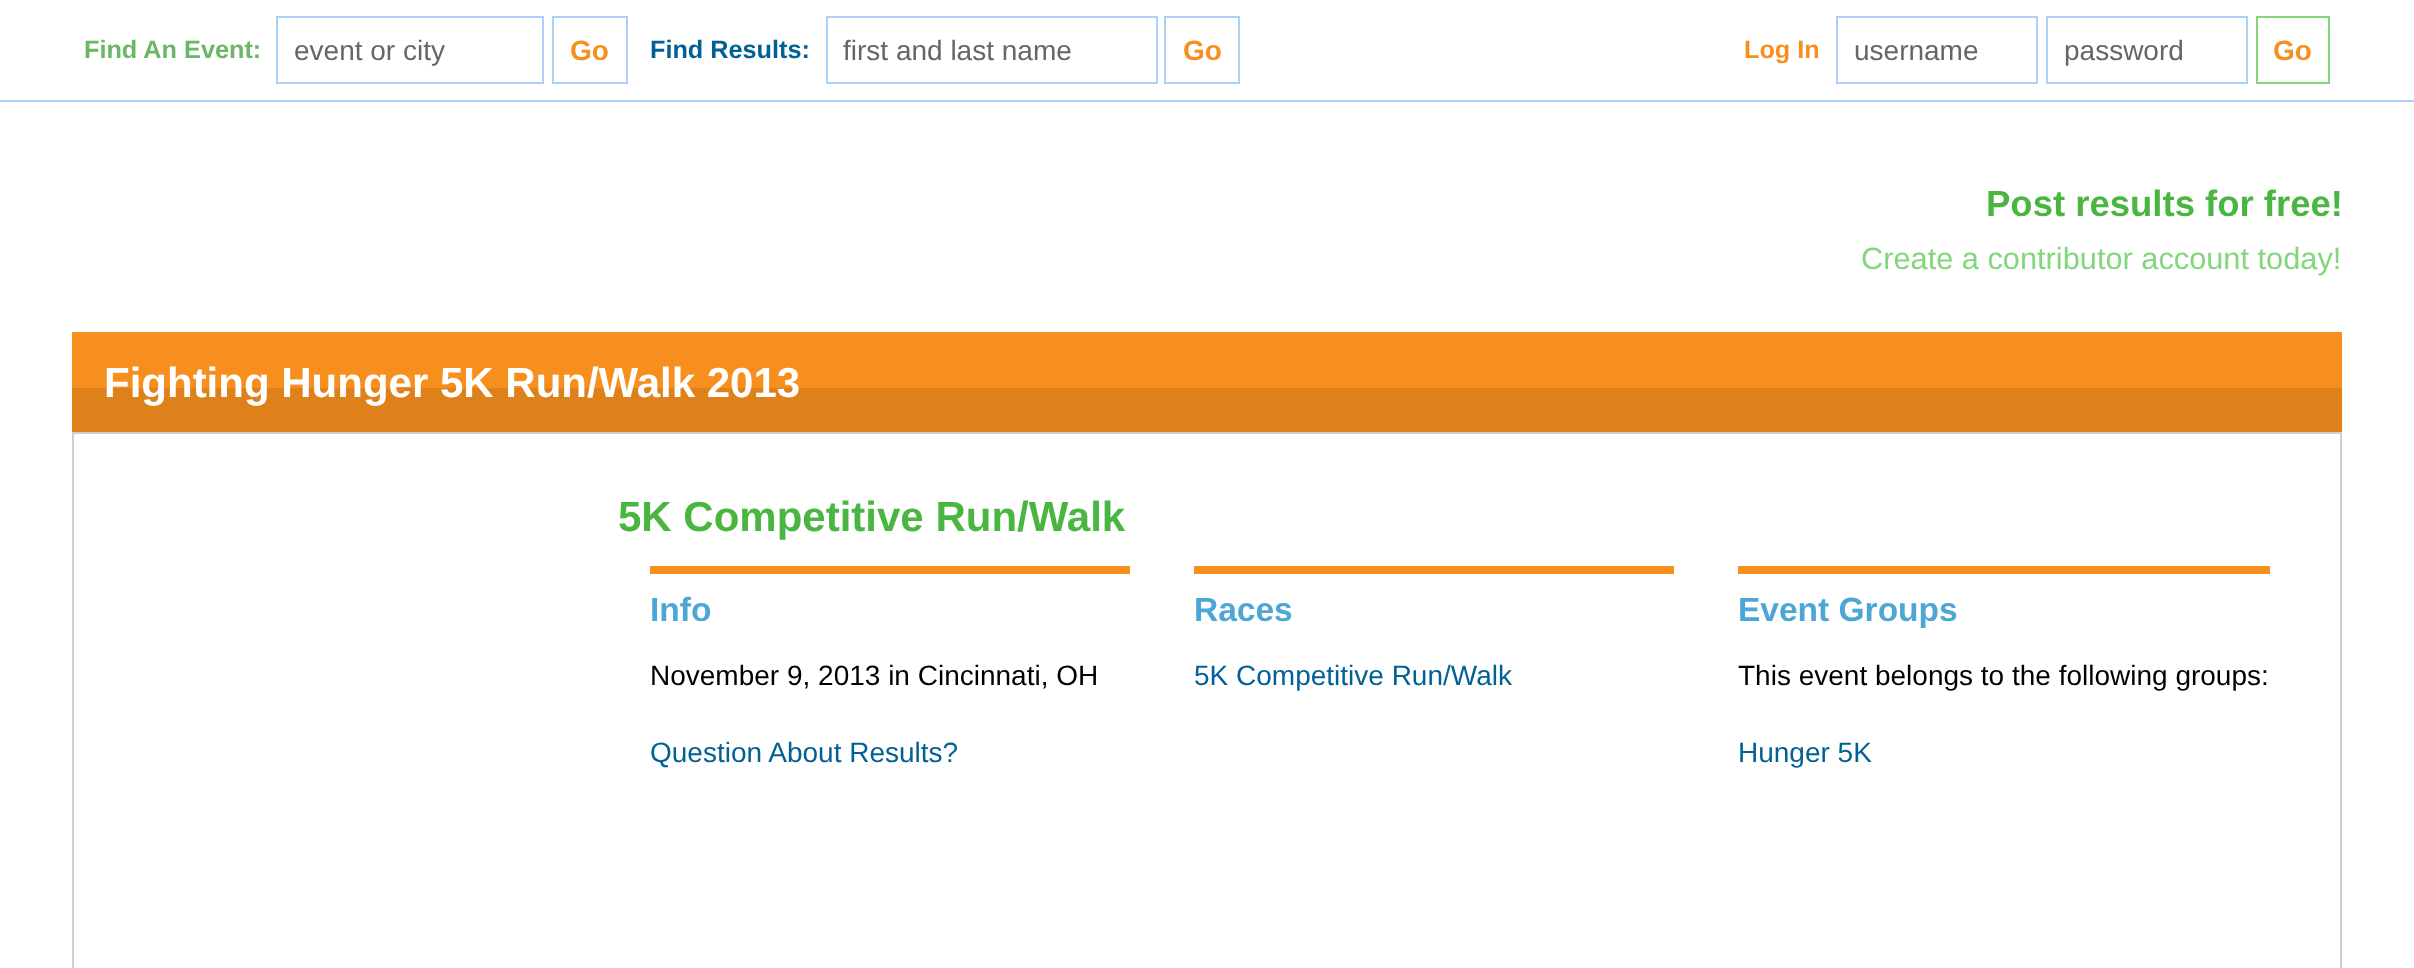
<svg xmlns="http://www.w3.org/2000/svg" width="2414" height="968" viewBox="0 0 2414 968">
  <style>
    .t1 { font: bold 25.25px Liberation Sans; fill: #6bb766; }
    .t2 { font: 28px Liberation Sans; fill: #666; }
    .t3 { font: bold 28px Liberation Sans; fill: #f78f1e; }
    .t4 { font: bold 25.25px Liberation Sans; fill: #036095; }
    .t5 { font: bold 25.25px Liberation Sans; fill: #f78f1e; }
    .t6 { font: bold 36.5px Liberation Sans; fill: #4ab641; }
    .t7 { font: 30.75px Liberation Sans; fill: #84d67d; }
    .t8 { font: bold 42px Liberation Sans; fill: #fff; }
    .t9 { font: bold 42px Liberation Sans; fill: #4ab641; }
    .t10 { font: bold 33.5px Liberation Sans; fill: #4da6d6; }
    .t11 { font: 28px Liberation Sans; fill: #000; }
    .t12 { font: 28px Liberation Sans; fill: #036095; }
  </style>
  <rect width="100%" height="100%" fill="#fff"/>
  <rect x="0" y="100" width="2414" height="2" fill="#acd0f7"/>
  <text x="84" y="58" class="t1">Find An Event:</text>
  <rect x="277" y="17" width="266" height="66" fill="none" stroke="#acd0f7" stroke-width="2"/>
  <text x="294" y="60" class="t2">event or city</text>
  <rect x="553" y="17" width="74" height="66" fill="none" stroke="#acd0f7" stroke-width="2"/>
  <text x="570" y="60" class="t3">Go</text>
  <text x="650" y="58" class="t4">Find Results:</text>
  <rect x="827" y="17" width="330" height="66" fill="none" stroke="#acd0f7" stroke-width="2"/>
  <text x="843" y="60" class="t2">first and last name</text>
  <rect x="1165" y="17" width="74" height="66" fill="none" stroke="#acd0f7" stroke-width="2"/>
  <text x="1183" y="60" class="t3">Go</text>
  <text x="1744" y="58" class="t5">Log In</text>
  <rect x="1837" y="17" width="200" height="66" fill="none" stroke="#acd0f7" stroke-width="2"/>
  <text x="1854" y="60" class="t2">username</text>
  <rect x="2047" y="17" width="200" height="66" fill="none" stroke="#acd0f7" stroke-width="2"/>
  <text x="2064" y="60" class="t2">password</text>
  <rect x="2257" y="17" width="72" height="66" fill="none" stroke="#84d67d" stroke-width="2"/>
  <text x="2273" y="60" class="t3">Go</text>
  <text x="1986" y="216" class="t6">Post results for free!</text>
  <text x="1861" y="269" class="t7">Create a contributor account today!</text>
  <rect x="72" y="332" width="2270" height="56" fill="#f78f1e"/>
  <rect x="72" y="388" width="2270" height="44" fill="#df811b"/>
  <text x="104" y="397" class="t8">Fighting Hunger 5K Run/Walk 2013</text>
  <rect x="73" y="433" width="2268" height="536" fill="none" stroke="#cfcfcf" stroke-width="2"/>
  <text x="618" y="531" class="t9">5K Competitive Run/Walk</text>
  <rect x="650" y="566" width="480" height="8" fill="#f78f1e"/>
  <text x="650" y="621" class="t10">Info</text>
  <text x="650" y="685" class="t11">November 9, 2013 in Cincinnati, OH</text>
  <text x="650" y="762" class="t12">Question About Results?</text>
  <rect x="1194" y="566" width="480" height="8" fill="#f78f1e"/>
  <text x="1194" y="621" class="t10">Races</text>
  <text x="1194" y="685" class="t12">5K Competitive Run/Walk</text>
  <rect x="1738" y="566" width="532" height="8" fill="#f78f1e"/>
  <text x="1738" y="621" class="t10">Event Groups</text>
  <text x="1738" y="685" class="t11">This event belongs to the following groups:</text>
  <text x="1738" y="762" class="t12">Hunger 5K</text>
</svg>
